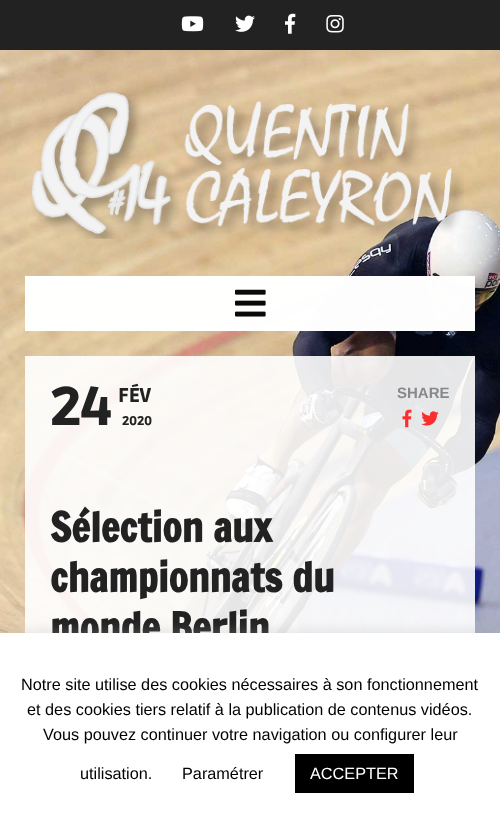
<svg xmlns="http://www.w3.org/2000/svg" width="500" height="838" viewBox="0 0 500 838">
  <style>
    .t1 { font: 900 54px Ruda; fill: #222; }
    .t2 { font: 900 20px Ruda; fill: #222; }
    .t3 { font: 900 12.5px Ruda; fill: #222; }
    .t4 { font: bold 15px Liberation Sans; fill: #888; }
    .t5 { font: bold 40px Francois One; fill: #222; }
    .t6 { font: 16.25px Liberation Sans; fill: #000; }
    .t7 { font: 16.25px Liberation Sans; fill: #fff; }
  </style>
  <rect width="100%" height="100%" fill="#fff"/>
  <image x="0" y="50" width="500" height="583" href="images/1.png"/>
  <rect x="0" y="0" width="500" height="50" fill="#222"/>
  <image x="181" y="16" width="23" height="16" href="images/2.png"/>
  <image x="235" y="15" width="20" height="17" href="images/3.png"/>
  <image x="285" y="13" width="11" height="21" href="images/4.png"/>
  <image x="326" y="15" width="18" height="18" href="images/5.png"/>
  <image x="31" y="92" width="433" height="147" href="images/6.png"/>
  <rect x="25" y="276" width="450" height="55" fill="#ffffffe6"/>
  <rect x="25" y="276" width="450" height="55" fill="#ffffffe6"/>
  <image x="235" y="289" width="31" height="28" href="images/7.png"/>
  <rect x="25" y="356" width="450" height="277" fill="#ffffffe6"/>
  <text x="50" y="425" class="t1">24</text>
  <text x="118" y="402" class="t2">FÉV</text>
  <text x="122" y="425" class="t3">2020</text>
  <text x="397" y="398" class="t4">SHARE</text>
  <image x="402" y="409" width="10" height="19" href="images/8.png"/>
  <image x="421" y="411" width="18" height="15" href="images/9.png"/>
  <text x="50" y="542" class="t5">Sélection aux</text>
  <text x="50" y="592" class="t5">championnats du</text>
  <text x="50" y="642" class="t5">monde Berlin</text>
  <rect x="0" y="631" width="500" height="207" fill="#acabab4d" filter="blur(6px)"/>
  <rect x="0" y="633" width="500" height="205" fill="#fff"/>
  <text x="21" y="690" class="t6">Notre site utilise des cookies nécessaires à son fonctionnement</text>
  <text x="27" y="715" class="t6">et des cookies tiers relatif à la publication de contenus vidéos.</text>
  <text x="43" y="740" class="t6">Vous pouvez continuer votre navigation ou configurer leur</text>
  <text x="80" y="779" class="t6">utilisation.</text>
  <text x="182" y="779" class="t6">Paramétrer</text>
  <rect x="295" y="754" width="119" height="39" fill="#000"/>
  <text x="310" y="779" class="t7">ACCEPTER</text>
</svg>
